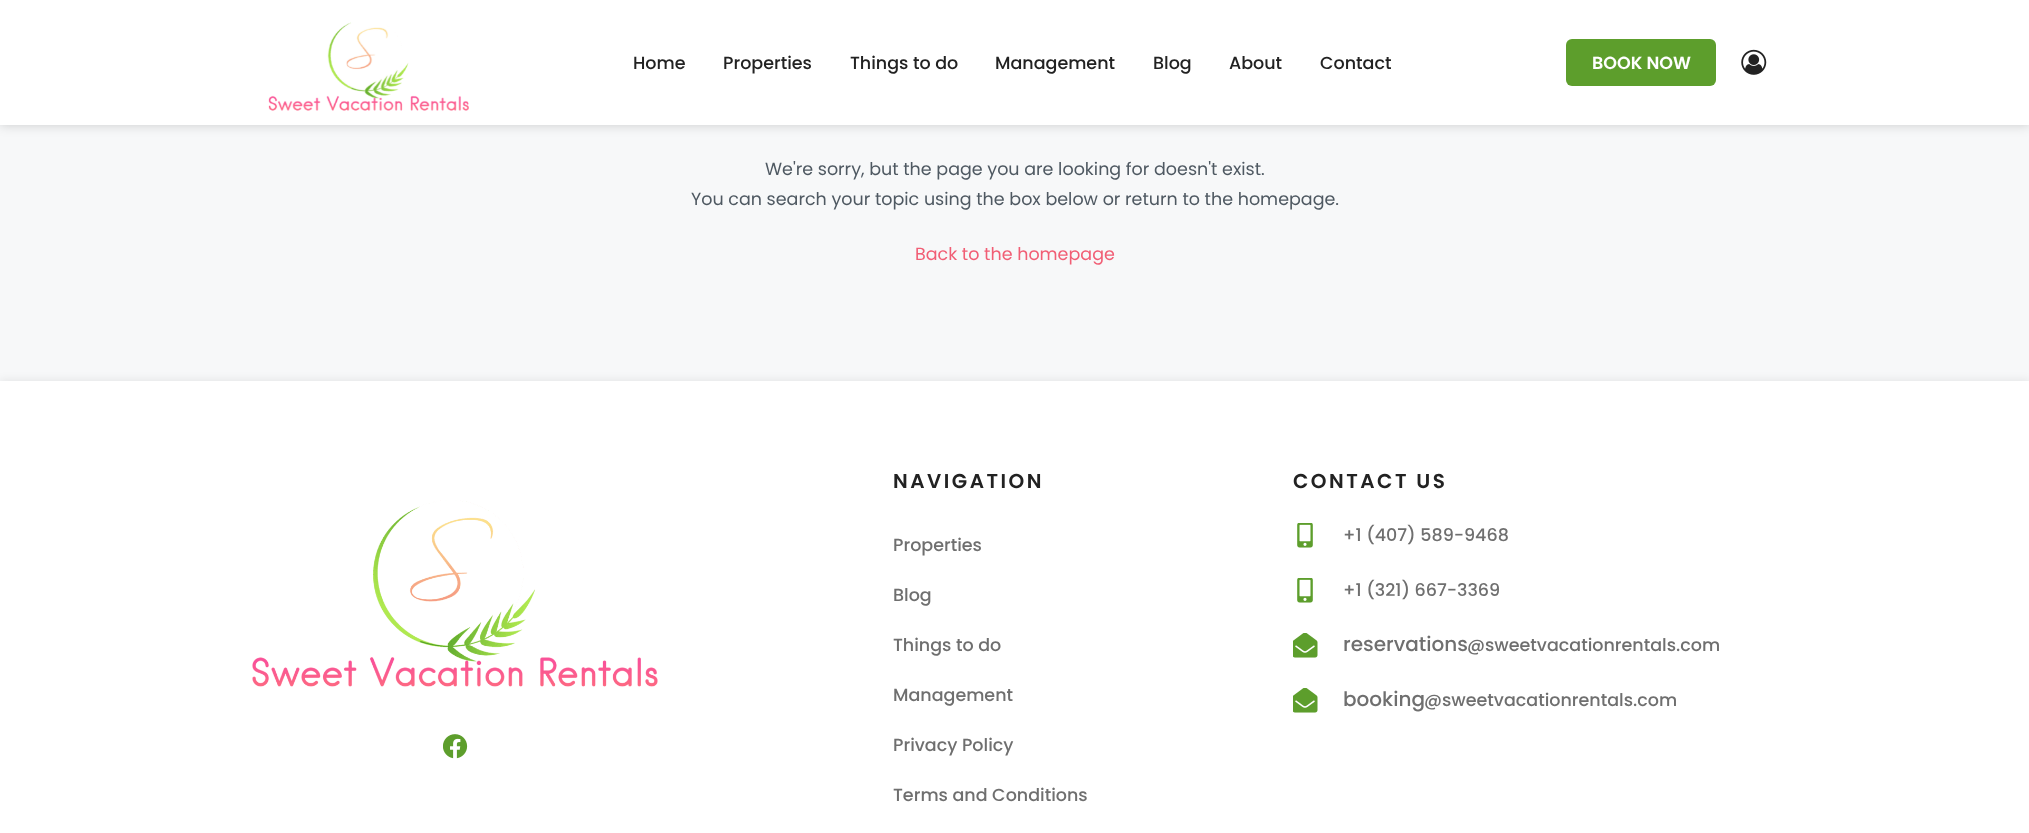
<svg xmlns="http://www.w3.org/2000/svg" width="2029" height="833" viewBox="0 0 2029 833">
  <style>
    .t1 { font: 500 17.5px Poppins; fill: #222; }
    .t2 { font: 600 17.5px Poppins; fill: #fff; }
    .t3 { font: 17.5px Poppins; fill: #4f5962; }
    .t4 { font: 17.5px Poppins; fill: #f15e75; }
    .t5 { font: 600 20px Poppins; letter-spacing: 2.5px; fill: #222; }
    .t6 { font: 500 17.5px Poppins; fill: #6f6f6f; }
    .t7 { font: 500 20px Poppins; fill: #6f6f6f; }
  </style>
  <rect width="100%" height="100%" fill="#f7f8f9"/>
  <rect x="0" y="0" width="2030" height="125" fill="#0000002e" filter="blur(6px)"/>
  <rect x="0" y="0" width="2029" height="125" fill="#fff"/>
  <image x="268" y="22" width="201" height="89" href="images/1.png"/>
  <text x="633" y="69" class="t1">Home</text>
  <text x="723" y="69" class="t1">Properties</text>
  <text x="850" y="69" class="t1">Things to do</text>
  <text x="995" y="69" class="t1">Management</text>
  <text x="1153" y="69" class="t1">Blog</text>
  <text x="1229" y="69" class="t1">About</text>
  <text x="1320" y="69" class="t1">Contact</text>
  <rect x="1566" y="39" width="150" height="47" rx="6" fill="#5d9e2c"/>
  <text x="1592" y="69" class="t2">BOOK NOW</text>
  <image x="1741" y="49" width="26" height="26" href="images/2.png"/>
  <text x="765" y="175" class="t3">We're sorry, but the page you are looking for doesn't exist.</text>
  <text x="691" y="205" class="t3">You can search your topic using the box below or return to the homepage.</text>
  <text x="915" y="260" class="t4">Back to the homepage</text>
  <rect x="0" y="380" width="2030" height="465" fill="#00000014" filter="blur(4px)"/>
  <rect x="0" y="381" width="2029" height="452" fill="#fff"/>
  <image x="252" y="500" width="406" height="187" href="images/3.png"/>
  <image x="443" y="734" width="25" height="25" href="images/4.png"/>
  <text x="893" y="488" class="t5">NAVIGATION</text>
  <text x="893" y="551" class="t6">Properties</text>
  <text x="893" y="601" class="t6">Blog</text>
  <text x="893" y="651" class="t6">Things to do</text>
  <text x="893" y="701" class="t6">Management</text>
  <text x="893" y="751" class="t6">Privacy Policy</text>
  <text x="893" y="801" class="t6">Terms and Conditions</text>
  <text x="1293" y="488" class="t5">CONTACT US</text>
  <image x="1297" y="523" width="16" height="25" href="images/5.png"/>
  <text x="1343" y="541" class="t6">+1 (407) 589-9468</text>
  <image x="1297" y="578" width="16" height="25" href="images/5.png"/>
  <text x="1343" y="596" class="t6">+1 (321) 667-3369</text>
  <image x="1293" y="633" width="25" height="25" href="images/6.png"/>
  <text x="1343" y="651" class="t7">reservations</text>
  <text x="1467" y="651" class="t6">@sweetvacationrentals.com</text>
  <image x="1293" y="688" width="25" height="25" href="images/6.png"/>
  <text x="1343" y="706" class="t7">booking</text>
  <text x="1424" y="706" class="t6">@sweetvacationrentals.com</text>
</svg>
